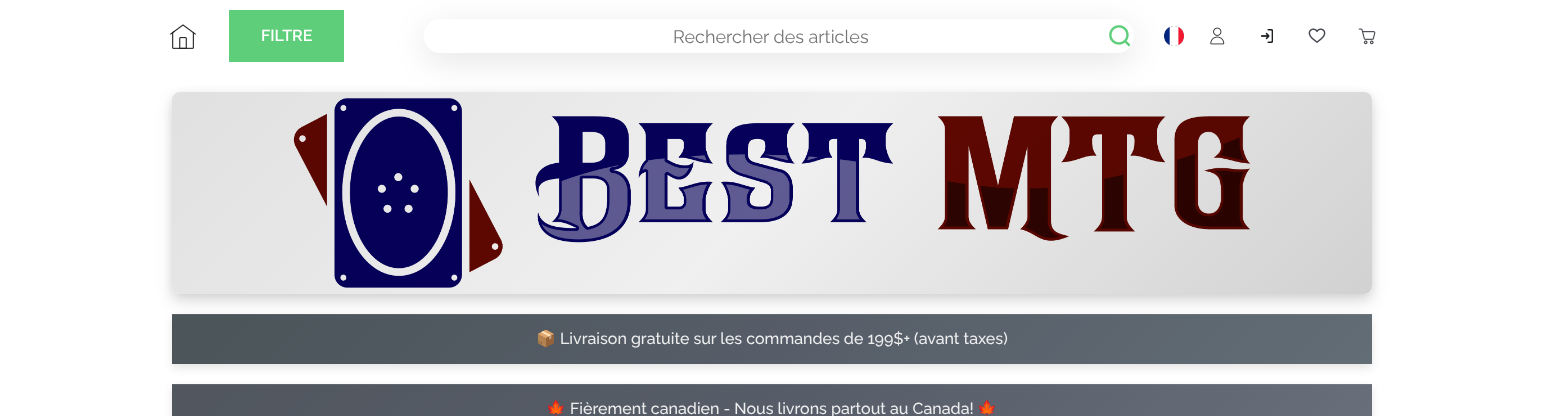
<svg xmlns="http://www.w3.org/2000/svg" width="1543" height="416" viewBox="0 0 1543 416">
  <style>
    .t1 { font: 600 16px Raleway; fill: #fff; }
    .t2 { font: 18px Raleway; fill: #757575; }
    .t3 { font: 16px Noto Color Emoji; fill: #eeeeef; }
    .t4 { font: 500 16px Raleway; fill: #eeeeef; }
  </style>
  <defs>
    <clipPath id="clip1"><path d="M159 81H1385V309H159ZM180 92H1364C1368.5 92 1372 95.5 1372 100V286C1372 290.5 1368.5 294 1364 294H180C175.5 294 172 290.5 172 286V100C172 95.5 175.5 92 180 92Z" clip-rule="evenodd"/></clipPath>
    <clipPath id="clip2"><path d="M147 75H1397V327H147ZM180 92H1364C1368.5 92 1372 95.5 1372 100V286C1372 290.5 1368.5 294 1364 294H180C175.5 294 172 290.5 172 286V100C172 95.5 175.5 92 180 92Z" clip-rule="evenodd"/></clipPath>
    <clipPath id="clip3"><path d="M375 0H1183V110H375ZM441 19H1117C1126.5 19 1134 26.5 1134 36C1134 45.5 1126.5 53 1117 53H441C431.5 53 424 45.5 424 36C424 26.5 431.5 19 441 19Z" clip-rule="evenodd"/></clipPath>
    <linearGradient id="g1" gradientUnits="userSpaceOnUse" x1="421" y1="-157" x2="1123" y2="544"><stop offset="0" stop-color="#000" stop-opacity="0.12"/><stop offset="0.5" stop-color="#000" stop-opacity="0.06"/><stop offset="1" stop-color="#000" stop-opacity="0.18"/></linearGradient>
    <linearGradient id="g2" gradientUnits="userSpaceOnUse" x1="460" y1="27" x2="1085" y2="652"><stop offset="0" stop-color="#4a5058"/><stop offset="0.5" stop-color="#565d68"/><stop offset="1" stop-color="#626975"/></linearGradient>
    <linearGradient id="g3" gradientUnits="userSpaceOnUse" x1="460" y1="27" x2="1085" y2="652"><stop offset="0" stop-color="#5ece7b" stop-opacity="0.04"/><stop offset="0.5" stop-color="#5ece7b" stop-opacity="0"/><stop offset="1" stop-color="#5ece7b" stop-opacity="0.04"/></linearGradient>
    <linearGradient id="g4" gradientUnits="userSpaceOnUse" x1="460" y1="97" x2="1085" y2="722"><stop offset="0" stop-color="#4a5058"/><stop offset="0.5" stop-color="#565d68"/><stop offset="1" stop-color="#626975"/></linearGradient>
    <linearGradient id="g5" gradientUnits="userSpaceOnUse" x1="460" y1="97" x2="1085" y2="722"><stop offset="0" stop-color="#585e65"/><stop offset="0.5" stop-color="#646a74"/><stop offset="1" stop-color="#6f7580"/></linearGradient>
    <linearGradient id="g6" gradientUnits="userSpaceOnUse" x1="460" y1="97" x2="1085" y2="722"><stop offset="0" stop-color="#fff" stop-opacity="0.04"/><stop offset="0.5" stop-color="#fff" stop-opacity="0"/><stop offset="1" stop-color="#fff" stop-opacity="0.04"/></linearGradient>
  </defs>
  <rect width="100%" height="100%" fill="#fff"/>
  <image x="170" y="24" width="26" height="25" href="images/1.png"/>
  <rect x="229" y="10" width="115" height="52" fill="#5ece7b"/>
  <text x="261" y="41" class="t1">FILTRE</text>
  <g clip-path="url(#clip1)">
    <rect x="172" y="94" width="1200" height="202" rx="8" fill="#00000014" filter="blur(4px)"/>
  </g>
  <g clip-path="url(#clip2)">
    <rect x="172" y="100" width="1200" height="202" rx="8" fill="#0000001f" filter="blur(8px)"/>
  </g>
  <image x="172" y="98" width="1200" height="196" href="images/8.png"/>
  <g clip-path="url(#clip3)">
    <rect x="424" y="27" width="710" height="34" rx="17" fill="#0000001a" filter="blur(16px)"/>
  </g>
  <rect x="424" y="19" width="710" height="34" rx="17" fill="#fffffff2"/>
  <text x="673" y="43" class="t2">Rechercher des articles</text>
  <image x="1109" y="25" width="22" height="22" href="images/2.png"/>
  <image x="1164" y="26" width="20" height="20" href="images/3.png"/>
  <image x="1210" y="27" width="15" height="18" href="images/4.png"/>
  <image x="1261" y="29" width="12" height="14" href="images/5.png"/>
  <image x="1308" y="28" width="18" height="15" href="images/6.png"/>
  <image x="1358" y="28" width="18" height="17" href="images/7.png"/>
  <image x="176" y="293" width="1192" height="1" href="images/9.png"/>
  <rect x="172" y="92" width="1200" height="202" rx="8" fill="url(#g1)"/>
  <rect x="172" y="318" width="1200" height="50" fill="#0000001a" filter="blur(4px)"/>
  <rect x="172" y="314" width="1200" height="50" fill="url(#g2)"/>
  <rect x="172" y="314" width="1200" height="1" fill="#ffffff14"/>
  <rect x="172" y="314" width="1200" height="50" fill="url(#g3)"/>
  <text x="536" y="344" class="t3">📦</text>
  <text x="560" y="344" class="t4">Livraison gratuite sur les commandes de 199$+ (avant taxes)</text>
  <rect x="172" y="388" width="1200" height="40" fill="#0000001a" filter="blur(4px)"/>
  <rect x="172" y="385" width="1200" height="31" fill="url(#g4)"/>
  <rect x="172" y="384" width="1200" height="1" fill="url(#g5)"/>
  <rect x="172" y="384" width="1200" height="32" fill="url(#g6)"/>
  <text x="546" y="414" class="t3">🍁</text>
  <text x="570" y="414" class="t4">Fièrement canadien - Nous livrons partout au Canada!</text>
  <text x="977" y="414" class="t3">🍁</text>
</svg>
